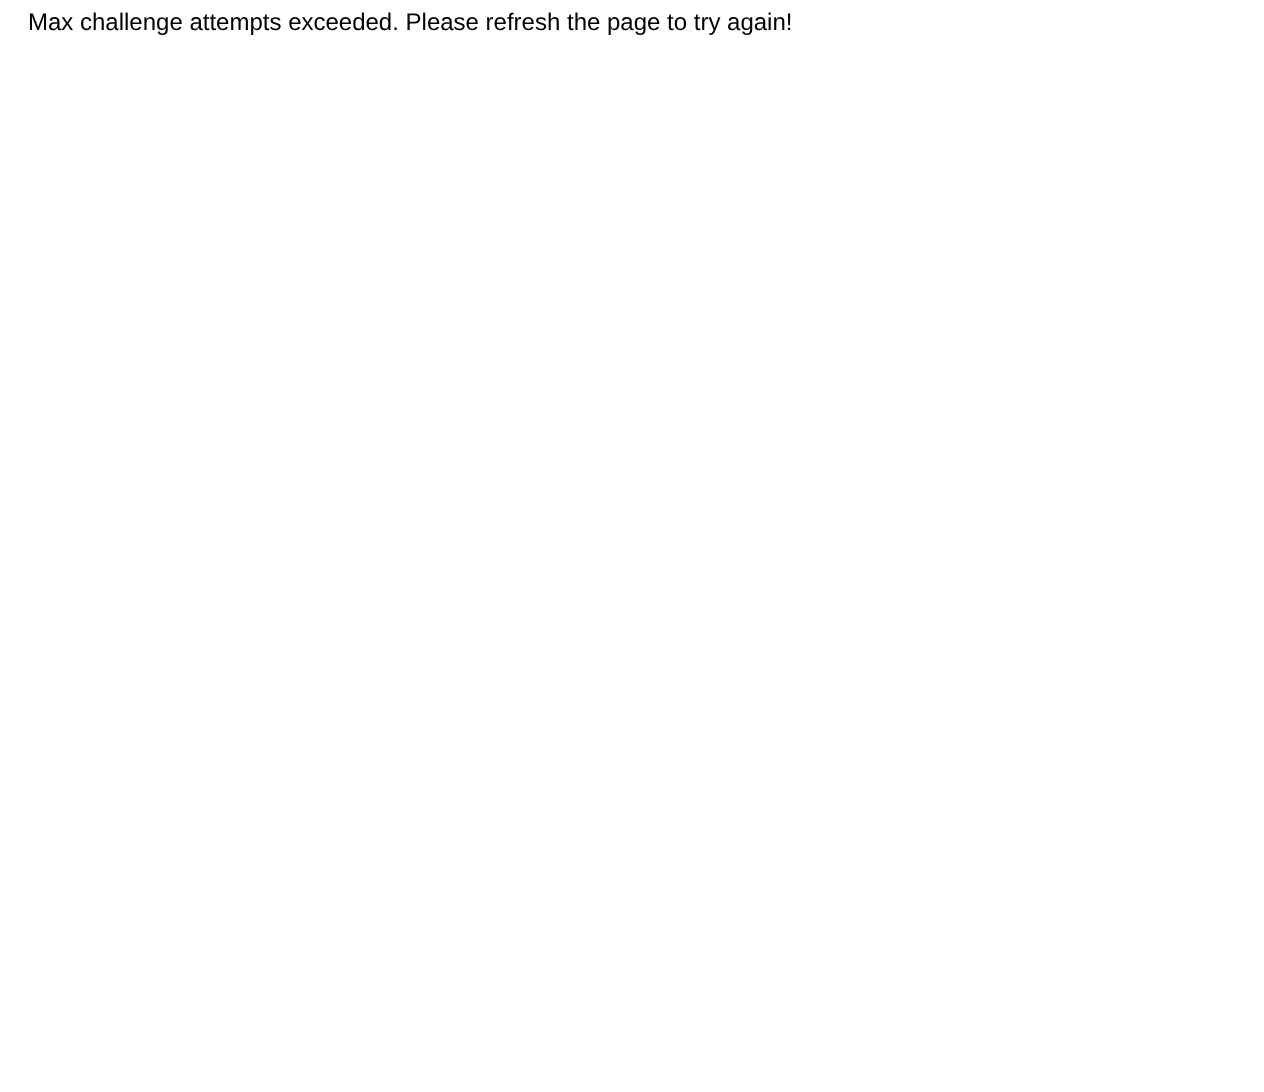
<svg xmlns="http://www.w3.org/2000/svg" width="1264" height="1092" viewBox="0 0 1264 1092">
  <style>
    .t1 { font: 24px Liberation Sans; fill: #000; }
  </style>
  <rect width="100%" height="100%" fill="#fff"/>
  <text x="28" y="30" class="t1">Max challenge attempts exceeded. Please refresh the page to try again!</text>
</svg>
